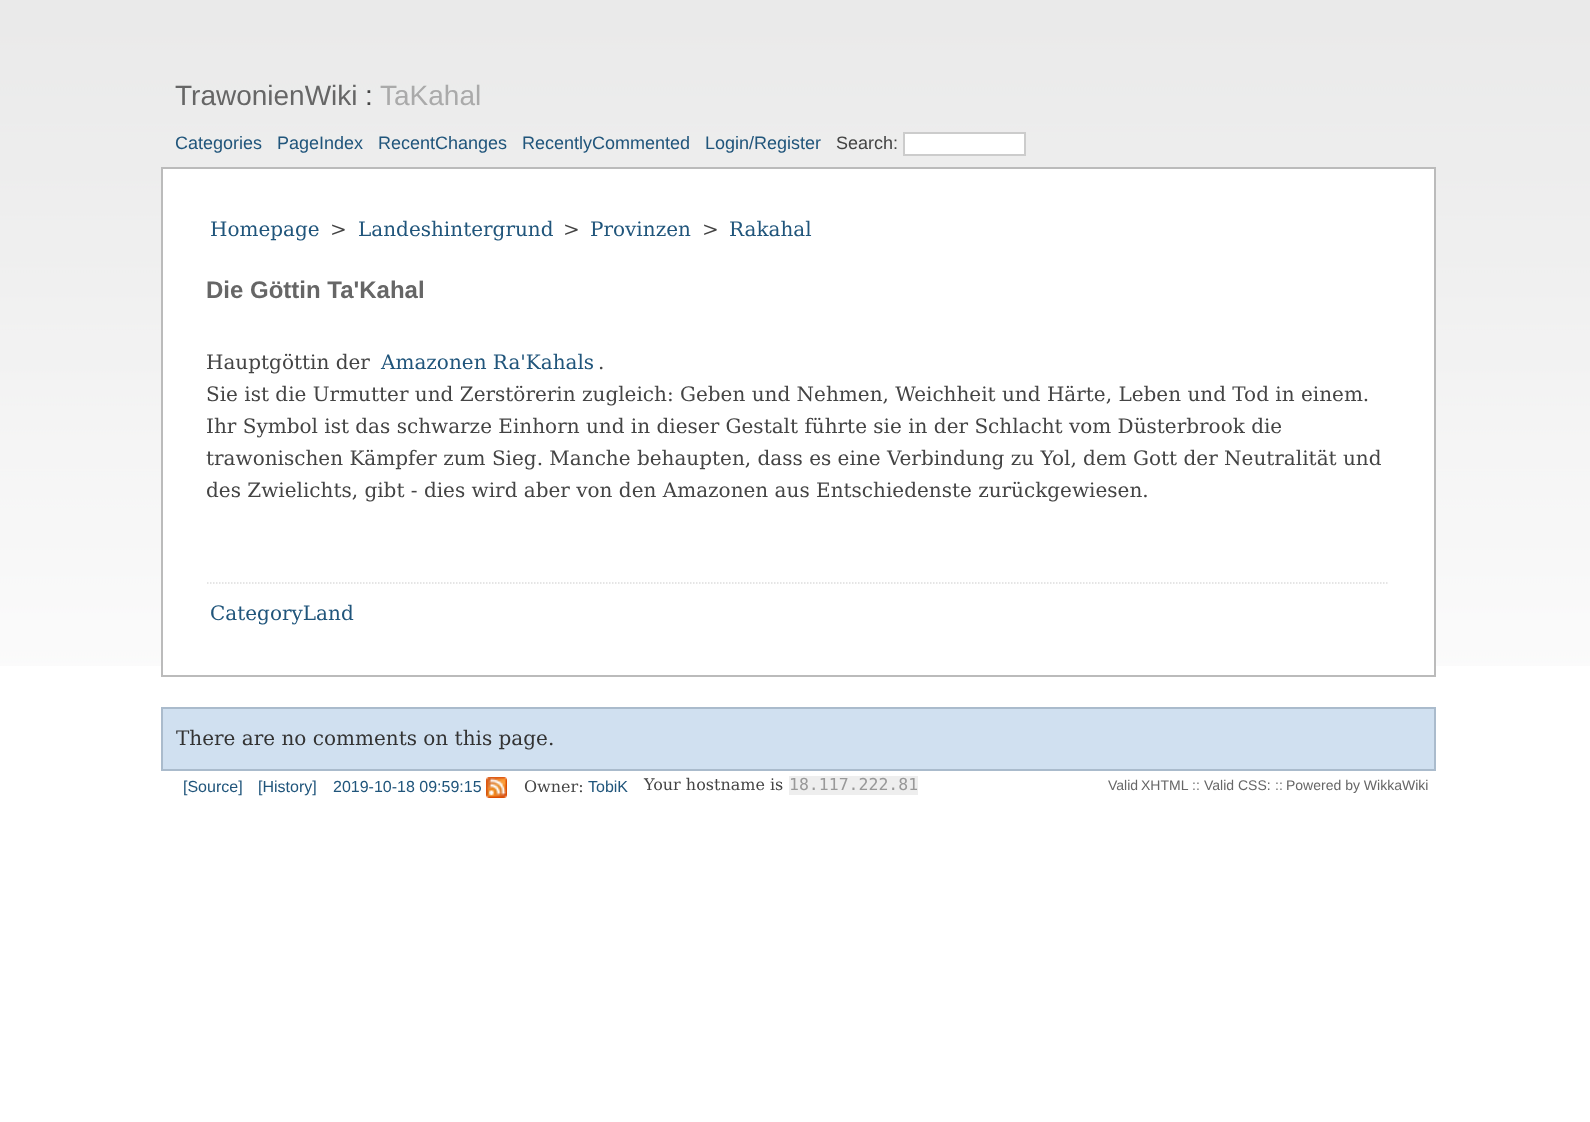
<svg xmlns="http://www.w3.org/2000/svg" width="1590" height="1122" viewBox="0 0 1590 1122">
  <style>
    .t1 { font: 28px Liberation Sans; fill: #666; }
    .t2 { font: 28px Liberation Sans; fill: #444; }
    .t3 { font: 28px Liberation Sans; fill: #aaa; }
    .t4 { font: 18px Liberation Sans; fill: #20557b; }
    .t5 { font: 18px Liberation Sans; fill: #444; }
    .t6 { font: 20px DejaVu Serif; fill: #20557b; }
    .t7 { font: 20px DejaVu Serif; fill: #444; }
    .t8 { font: bold 24px Liberation Sans; fill: #666; }
    .t9 { font: 20px DejaVu Serif; fill: #333; }
    .t10 { font: 16px Liberation Sans; fill: #20557b; }
    .t11 { font: 16px DejaVu Serif; fill: #444; }
    .t12 { font: 16.5px DejaVu Sans Mono; fill: #999; }
    .t13 { font: 14px Liberation Sans; fill: #666; }
    .t14 { font: 14px Liberation Sans; fill: #777; }
  </style>
  <rect width="100%" height="100%" fill="#fff"/>
  <image x="0" y="0" width="1590" height="666" href="images/1.png"/>
  <text x="175" y="105" class="t1">TrawonienWiki</text>
  <text x="365" y="105" class="t2">:</text>
  <text x="380" y="105" class="t3">TaKahal</text>
  <text x="175" y="149" class="t4">Categories</text>
  <text x="277" y="149" class="t4">PageIndex</text>
  <text x="378" y="149" class="t4">RecentChanges</text>
  <text x="522" y="149" class="t4">RecentlyCommented</text>
  <text x="705" y="149" class="t4">Login/Register</text>
  <text x="836" y="149" class="t5">Search:</text>
  <rect x="904" y="133" width="121" height="22" fill="#fff" stroke="#ccc" stroke-width="2"/>
  <rect x="163" y="169" width="1271" height="497" fill="#fff"/>
  <rect x="162" y="168" width="1273" height="508" fill="none" stroke="#bbb" stroke-width="2"/>
  <text x="210" y="236" class="t6">Homepage</text>
  <text x="330" y="236" class="t7">&gt;</text>
  <text x="358" y="236" class="t6">Landeshintergrund</text>
  <text x="563" y="236" class="t7">&gt;</text>
  <text x="590" y="236" class="t6">Provinzen</text>
  <text x="702" y="236" class="t7">&gt;</text>
  <text x="729" y="236" class="t6">Rakahal</text>
  <text x="206" y="298" class="t8">Die Göttin Ta'Kahal</text>
  <text x="206" y="369" class="t7">Hauptgöttin der</text>
  <text x="381" y="369" class="t6">Amazonen Ra'Kahals</text>
  <text x="598" y="369" class="t7">.</text>
  <text x="206" y="401" class="t7">Sie ist die Urmutter und Zerstörerin zugleich: Geben und Nehmen, Weichheit und Härte, Leben und Tod in einem.</text>
  <text x="206" y="433" class="t7">Ihr Symbol ist das schwarze Einhorn und in dieser Gestalt führte sie in der Schlacht vom Düsterbrook die</text>
  <text x="206" y="465" class="t7">trawonischen Kämpfer zum Sieg. Manche behaupten, dass es eine Verbindung zu Yol, dem Gott der Neutralität und</text>
  <text x="206" y="497" class="t7">des Zwielichts, gibt - dies wird aber von den Amazonen aus Entschiedenste zurückgewiesen.</text>
  <path d="M207 583H1389" fill="none" stroke="#ddd" stroke-width="1.5" stroke-dasharray="1.5 1.5"/>
  <text x="210" y="620" class="t6">CategoryLand</text>
  <rect x="162" y="708" width="1273" height="62" fill="#d0e0f0" stroke="#abc" stroke-width="2"/>
  <text x="176" y="745" class="t9">There are no comments on this page.</text>
  <text x="183" y="792" class="t10">[Source]</text>
  <text x="258" y="792" class="t10">[History]</text>
  <text x="333" y="792" class="t10">2019-10-18 09:59:15</text>
  <image x="486" y="777" width="21" height="21" href="images/2.png"/>
  <text x="524" y="792" class="t11">Owner:</text>
  <text x="588" y="792" class="t10">TobiK</text>
  <text x="644" y="790" class="t11">Your hostname is</text>
  <rect x="789" y="776" width="129" height="19" fill="#eee"/>
  <text x="789" y="790" class="t12">18.117.222.81</text>
  <text x="1108" y="790" word-spacing="-1" class="t13">Valid XHTML</text>
  <text x="1192" y="790" class="t14">::</text>
  <text x="1204" y="790" class="t13">Valid CSS:</text>
  <text x="1275" y="790" class="t14">::</text>
  <text x="1286" y="790" class="t13">Powered by WikkaWiki</text>
</svg>
